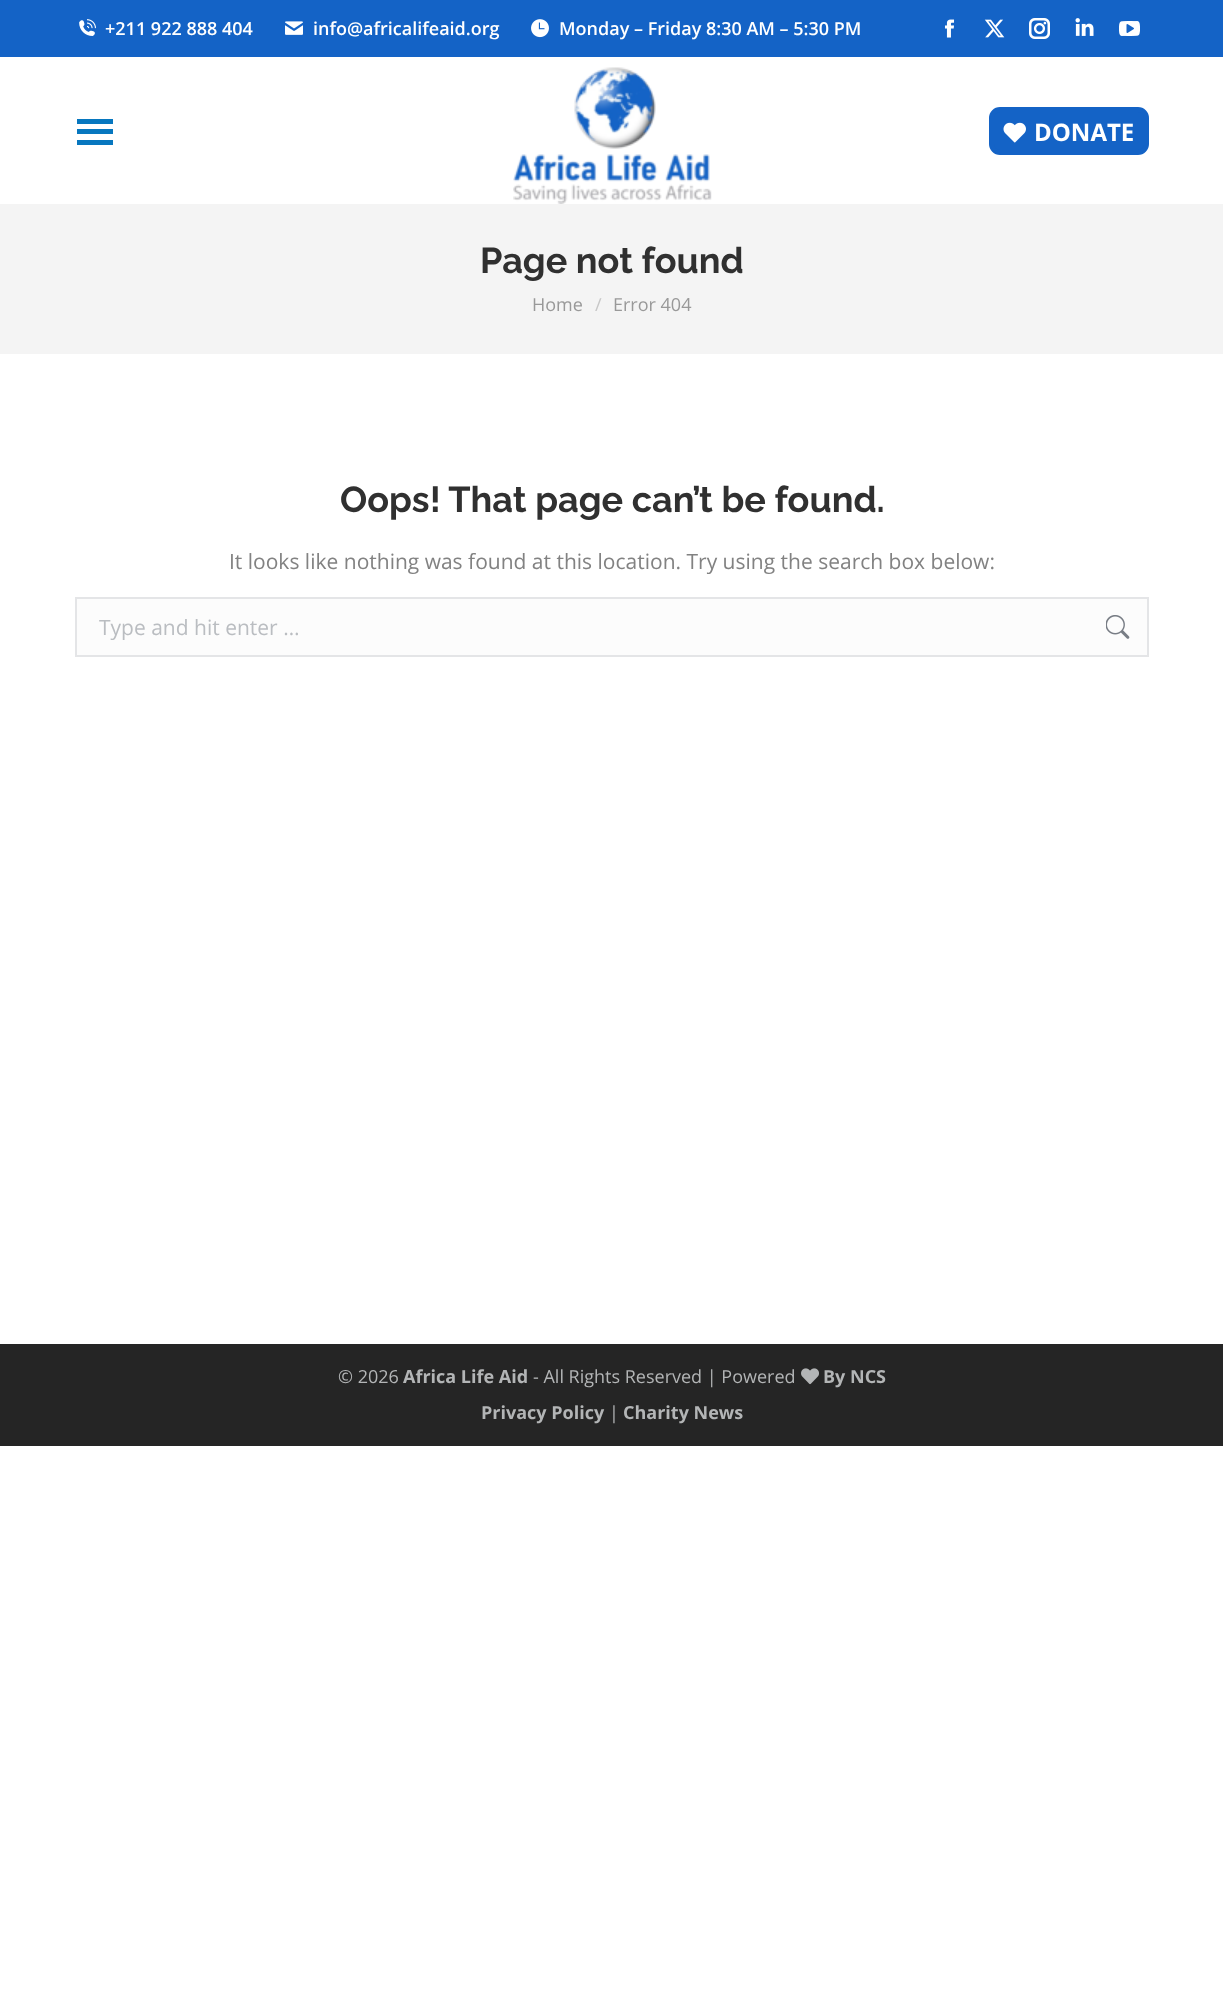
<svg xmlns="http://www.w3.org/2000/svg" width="1223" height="2013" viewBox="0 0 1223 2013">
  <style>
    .t1 { font: 600 18px Open Sans; fill: #fff; }
    .t2 { font: bold 24px Open Sans; fill: #fff; }
    .t3 { font: 100 36px Raleway; fill: #303030; }
    .t4 { font: 18px Open Sans; fill: #999; }
    .t5 { font: 18px Open Sans; fill: #c7c7c7; }
    .t6 { font: 21px Open Sans; fill: #828282; }
    .t7 { font: 21px Open Sans; fill: #babdc1; }
    .t8 { font: 18px Open Sans; fill: #b3b5b6; }
    .t9 { font: bold 18px Open Sans; fill: #b3b5b6; }
  </style>
  <rect width="100%" height="100%" fill="#fff"/>
  <rect x="0" y="0" width="1223" height="57" fill="#1463c6"/>
  <image x="79" y="19" width="17" height="17" href="images/1.png"/>
  <text x="105" y="35" class="t1">+211 922 888 404</text>
  <image x="285" y="21" width="18" height="14" href="images/2.png"/>
  <text x="313" y="35" class="t1">info@africalifeaid.org</text>
  <image x="531" y="19" width="18" height="19" href="images/3.png"/>
  <text x="559" y="35" class="t1">Monday – Friday 8:30 AM – 5:30 PM</text>
  <image x="944" y="19" width="11" height="19" href="images/4.png"/>
  <image x="984" y="19" width="21" height="19" href="images/5.png"/>
  <image x="1029" y="18" width="21" height="21" href="images/6.png"/>
  <image x="1075" y="18" width="19" height="18" href="images/7.png"/>
  <image x="1119" y="21" width="21" height="15" href="images/8.png"/>
  <rect x="77" y="119" width="36" height="5" fill="#0777bf"/>
  <rect x="77" y="129" width="36" height="5" fill="#0777bf"/>
  <rect x="77" y="140" width="36" height="5" fill="#0777bf"/>
  <image x="513" y="67" width="199" height="137" href="images/9.png"/>
  <rect x="991.5" y="109.5" width="155" height="43" rx="8.5" fill="#1463c6" stroke="#1463c6" stroke-width="5"/>
  <image x="1003" y="122" width="23" height="21" href="images/10.png"/>
  <text x="1034" y="141" class="t2">DONATE</text>
  <rect x="0" y="204" width="1223" height="150" fill="#f4f4f4"/>
  <text x="480" y="273" class="t3">Page not found</text>
  <text x="532" y="311" class="t4">Home</text>
  <text x="595" y="311" class="t5">/</text>
  <text x="613" y="311" class="t4">Error 404</text>
  <text x="340" y="512" class="t3">Oops! That page can’t be found.</text>
  <text x="229" y="569" class="t6">It looks like nothing was found at this location. Try using the search box below:</text>
  <rect x="76" y="598" width="1072" height="58" fill="#fcfcfc" stroke="#e4e5e7" stroke-width="2"/>
  <text x="99" y="635" class="t7">Type and hit enter …</text>
  <image x="1106" y="615" width="24" height="24" href="images/11.png"/>
  <rect x="0" y="1344" width="1223" height="102" fill="#252525"/>
  <text x="338" y="1383" class="t8">© 2026</text>
  <text x="403" y="1383" class="t9">Africa Life Aid</text>
  <text x="533" y="1383" class="t8">- All Rights Reserved | Powered</text>
  <image x="801" y="1368" width="18" height="17" href="images/12.png"/>
  <text x="823" y="1383" class="t9">By NCS</text>
  <text x="481" y="1419" class="t9">Privacy Policy</text>
  <text x="609" y="1419" class="t8">|</text>
  <text x="623" y="1419" class="t9">Charity News</text>
</svg>
